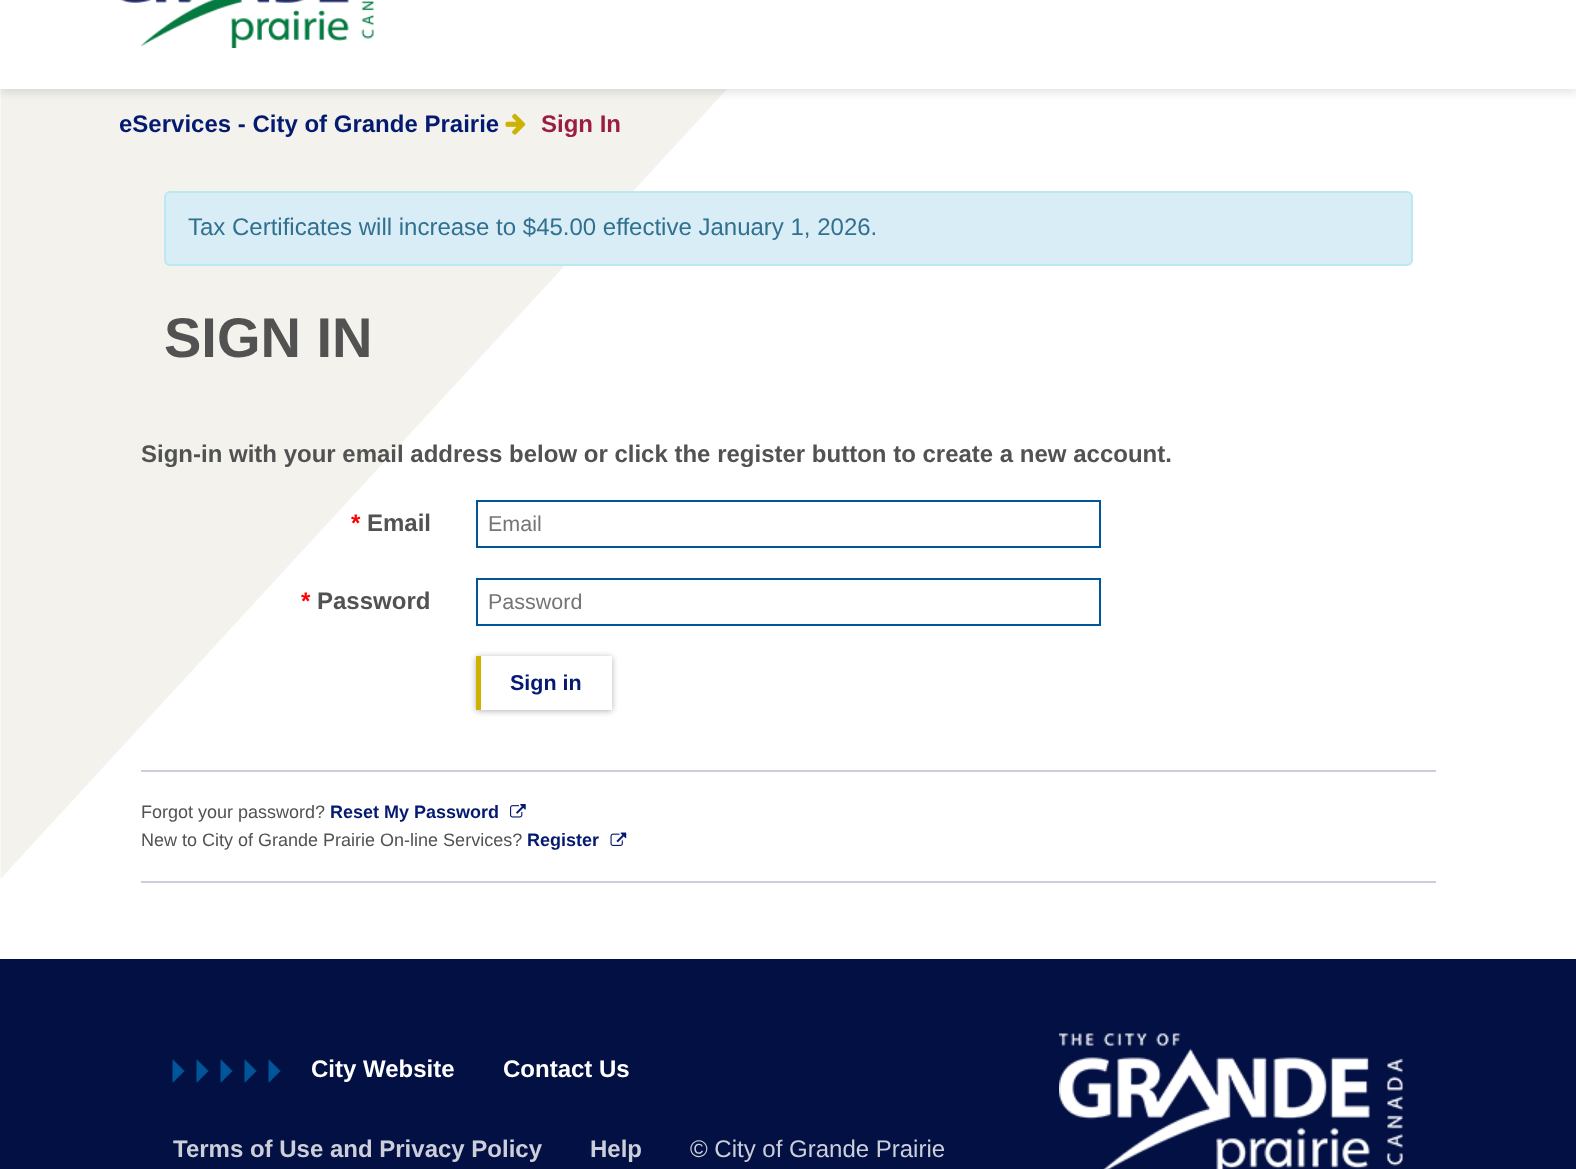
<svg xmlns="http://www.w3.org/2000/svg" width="1576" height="1169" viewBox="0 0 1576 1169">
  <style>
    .t1 { font: bold 24px Liberation Sans; fill: #041a71; }
    .t2 { font: bold 24px Liberation Sans; fill: #9c1d44; }
    .t3 { font: 24px Liberation Sans; fill: #31708f; }
    .t4 { font: bold 56px Liberation Sans; fill: #525252; }
    .t5 { font: bold 24px Liberation Sans; fill: #525252; }
    .t6 { font: bold 24px Liberation Sans; fill: #f00; }
    .t7 { font: 21.5px Liberation Sans; fill: #757575; }
    .t8 { font: bold 21.5px Liberation Sans; fill: #041a71; }
    .t9 { font: 18px Liberation Sans; fill: #525252; }
    .t10 { font: bold 18px Liberation Sans; fill: #041a71; }
    .t11 { font: bold 24px Liberation Sans; fill: #fff; }
    .t12 { font: bold 24px Liberation Sans; fill: #cccfda; }
    .t13 { font: 24px Liberation Sans; fill: #cccfda; }
  </style>
  <rect width="100%" height="100%" fill="#fff"/>
  <image x="0" y="89" width="728" height="790" href="images/2.png"/>
  <rect x="0" y="-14" width="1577" height="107" fill="#0000001a" filter="blur(4.5px)"/>
  <rect x="0" y="0" width="1576" height="89" fill="#fff"/>
  <image x="120" y="0" width="254" height="48" href="images/1.png"/>
  <text x="119" y="132" class="t1">eServices - City of Grande Prairie</text>
  <image x="505" y="113" width="21" height="22" href="images/3.png"/>
  <text x="541" y="132" class="t2">Sign In</text>
  <rect x="165" y="192" width="1247" height="73" rx="5" fill="#d9edf7" stroke="#bce8f1" stroke-width="2"/>
  <text x="188" y="235" class="t3">Tax Certificates will increase to $45.00 effective January 1, 2026.</text>
  <text x="164" y="357" class="t4">SIGN IN</text>
  <text x="141" y="462" class="t5">Sign-in with your email address below or click the register button to create a new account.</text>
  <text x="351" y="531" class="t6">*</text>
  <text x="367" y="531" class="t5">Email</text>
  <rect x="477" y="501" width="623" height="46" fill="none" stroke="#005699" stroke-width="2"/>
  <text x="488" y="531" class="t7">Email</text>
  <text x="301" y="609" class="t6">*</text>
  <text x="317" y="609" class="t5">Password</text>
  <rect x="477" y="579" width="623" height="46" fill="none" stroke="#005699" stroke-width="2"/>
  <text x="488" y="609" class="t7">Password</text>
  <rect x="476" y="657" width="136" height="54" fill="#0000004d" filter="blur(3px)"/>
  <rect x="481" y="656" width="131" height="54" fill="#fff"/>
  <rect x="476" y="656" width="5" height="54" fill="#cdb201"/>
  <text x="510" y="690" class="t8">Sign in</text>
  <rect x="141" y="770" width="1295" height="2" fill="#cccfda"/>
  <text x="141" y="818" class="t9">Forgot your password?</text>
  <text x="330" y="818" class="t10">Reset My Password</text>
  <image x="510" y="804" width="16" height="14" href="images/4.png"/>
  <text x="141" y="846" class="t9">New to City of Grande Prairie On-line Services?</text>
  <text x="527" y="846" class="t10">Register</text>
  <image x="610" y="832" width="17" height="14" href="images/5.png"/>
  <rect x="141" y="881" width="1295" height="2" fill="#cccfda"/>
  <rect x="0" y="959" width="1576" height="210" fill="#021044"/>
  <image x="172" y="1059" width="109" height="24" href="images/6.png"/>
  <text x="311" y="1077" class="t11">City Website</text>
  <text x="503" y="1077" class="t11">Contact Us</text>
  <text x="173" y="1157" class="t12">Terms of Use and Privacy Policy</text>
  <text x="590" y="1157" class="t12">Help</text>
  <text x="690" y="1157" class="t13">© City of Grande Prairie</text>
  <image x="1059" y="1033" width="344" height="136" href="images/7.png"/>
</svg>
